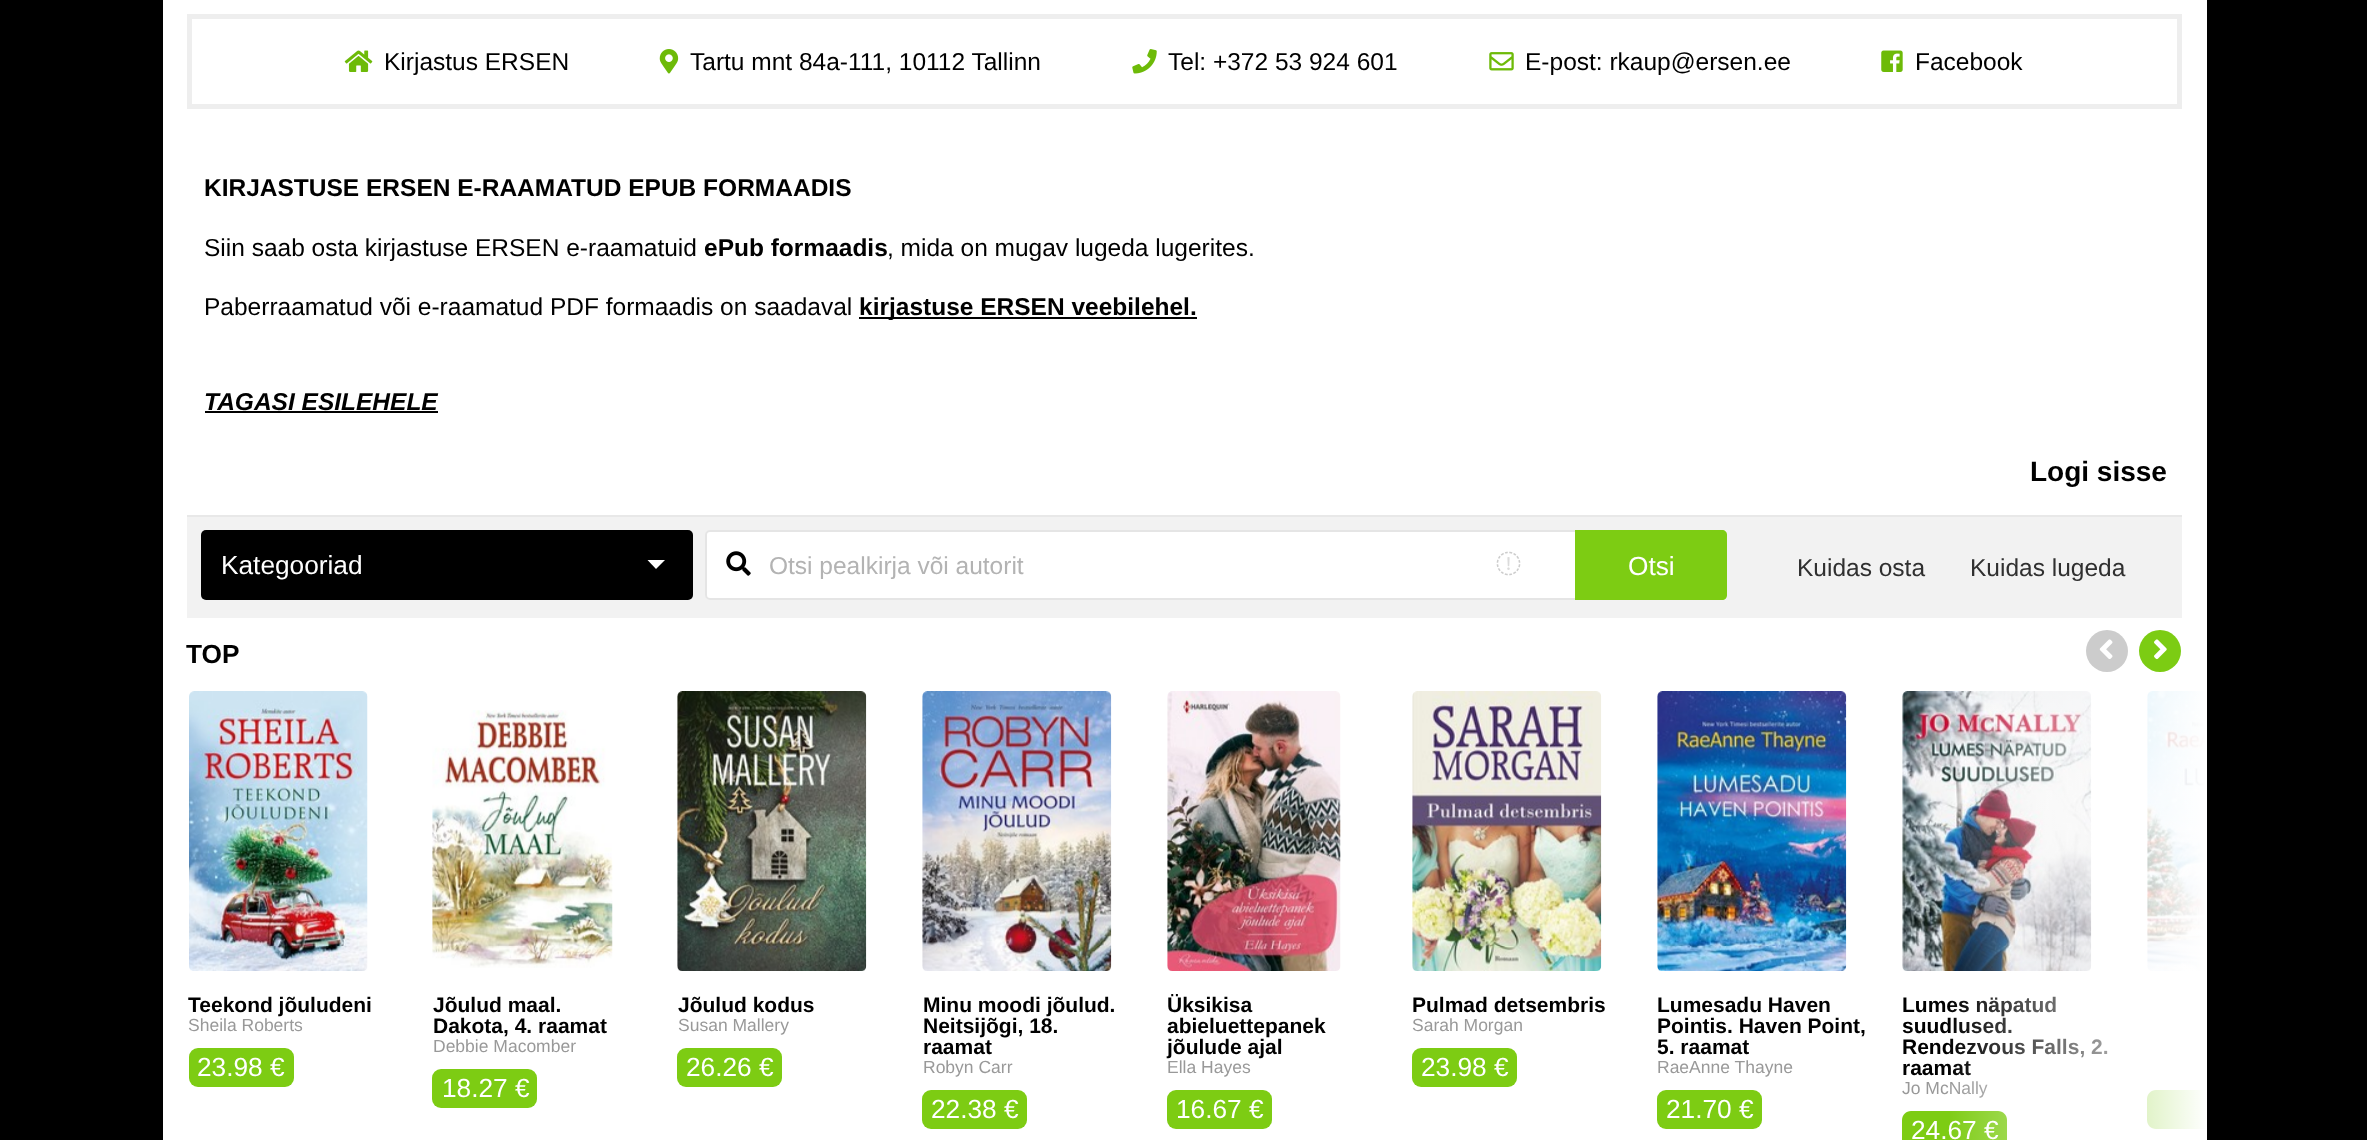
<svg xmlns="http://www.w3.org/2000/svg" width="2367" height="1140" viewBox="0 0 2367 1140">
  <style>
    .t1 { font: 24.5px Liberation Sans; fill: #000; }
    .t2 { font: bold 24.5px Liberation Sans; fill: #000; }
    .t3 { font: italic bold 24.5px Liberation Sans; fill: #000; }
    .t4 { font: bold 28px Liberation Sans; fill: #000; }
    .t5 { font: 26.25px Liberation Sans; fill: #fff; }
    .t6 { font: 24.5px Liberation Sans; fill: #b3b3b3; }
    .t7 { font: 24.5px Liberation Sans; fill: #303030; }
    .t8 { font: bold 26.25px Liberation Sans; fill: #000; }
    .t9 { font: bold 21px Liberation Sans; fill: #000; }
    .t10 { font: 17.5px Liberation Sans; fill: #999; }
  </style>
  <defs>
    <linearGradient id="g1" gradientUnits="userSpaceOnUse" x1="1944" y1="957" x2="2207" y2="957"><stop offset="0" stop-color="#fff" stop-opacity="0"/><stop offset="1" stop-color="#fff"/></linearGradient>
  </defs>
  <rect width="100%" height="100%" fill="#000"/>
  <rect x="163" y="0" width="2044" height="1140" fill="#fff"/>
  <rect x="189.5" y="16.5" width="1990" height="90" fill="none" stroke="#eee" stroke-width="5"/>
  <image x="344" y="50" width="29" height="22" href="images/1.png"/>
  <text x="384" y="70" class="t1">Kirjastus ERSEN</text>
  <image x="659" y="49" width="20" height="25" href="images/2.png"/>
  <text x="690" y="70" class="t1">Tartu mnt 84a-111, 10112 Tallinn</text>
  <image x="1132" y="49" width="25" height="25" href="images/3.png"/>
  <text x="1168" y="70" class="t1">Tel: +372 53 924 601</text>
  <image x="1489" y="52" width="25" height="19" href="images/4.png"/>
  <text x="1525" y="70" class="t1">E-post: rkaup@ersen.ee</text>
  <image x="1881" y="50" width="22" height="22" href="images/5.png"/>
  <text x="1915" y="70" class="t1">Facebook</text>
  <text x="204" y="196" class="t2">KIRJASTUSE ERSEN E-RAAMATUD EPUB FORMAADIS</text>
  <text x="204" y="256" class="t1">Siin saab osta kirjastuse ERSEN e-raamatuid</text>
  <text x="704" y="256" class="t2">ePub formaadis</text>
  <text x="887" y="256" class="t1">, mida on mugav lugeda lugerites.</text>
  <text x="204" y="315" class="t1">Paberraamatud või e-raamatud PDF formaadis on saadaval</text>
  <rect x="859" y="317" width="338" height="2" fill="#000"/>
  <text x="859" y="315" class="t2">kirjastuse ERSEN veebilehel.</text>
  <text x="204" y="410" class="t3">TAGASI ESILEHELE</text>
  <rect x="205" y="411" width="233" height="2" fill="#000"/>
  <text x="2030" y="481" class="t4">Logi sisse</text>
  <rect x="187" y="517" width="1995" height="101" fill="#f2f2f2"/>
  <rect x="187" y="515" width="1995" height="2" fill="#e8e8e8"/>
  <rect x="201" y="530" width="492" height="70" rx="5" fill="#000"/>
  <text x="221" y="574" class="t5">Kategooriad</text>
  <path d="M647.5 560H665L656 569Z" fill="#fff"/>
  <rect x="705" y="530" width="1022" height="70" rx="5" fill="#fff"/>
  <rect x="706" y="531" width="1020" height="68" rx="4" fill="none" stroke="#0000001a" stroke-width="2"/>
  <image x="726" y="551" width="25" height="25" href="images/6.png"/>
  <text x="769" y="574" class="t6">Otsi pealkirja või autorit</text>
  <image x="1496" y="551" width="25" height="25" href="images/7.png"/>
  <path d="M1575 530H1722C1725 530 1727 532 1727 535V595C1727 598 1725 600 1722 600H1575Z" fill="#7dcc13"/>
  <text x="1628" y="575" class="t5">Otsi</text>
  <text x="1797" y="576" class="t7">Kuidas osta</text>
  <text x="1970" y="576" class="t7">Kuidas lugeda</text>
  <text x="186" y="663" class="t8">TOP</text>
  <circle cx="2107" cy="651" r="21" fill="#ccc"/>
  <image x="2099" y="639" width="14" height="20" href="images/8.png"/>
  <circle cx="2160" cy="651" r="21" fill="#7ccc13"/>
  <image x="2154" y="639" width="13" height="21" href="images/9.png"/>
  <image x="1902" y="691" width="190" height="280" href="images/17.png"/>
  <text x="1902" y="1012" class="t9">Lumes näpatud</text>
  <text x="1902" y="1033" class="t9">suudlused.</text>
  <text x="1902" y="1054" class="t9">Rendezvous Falls, 2.</text>
  <text x="1902" y="1075" class="t9">raamat</text>
  <text x="1902" y="1094" class="t10">Jo McNally</text>
  <path d="M1911 1111H1998C2003 1111 2007 1115 2007 1120V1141H1902V1120C1902 1115 1906 1111 1911 1111Z" fill="#7dcc13"/>
  <text x="1911" y="1139" class="t5">24.67 €</text>
  <image x="2147" y="691" width="58" height="280" href="images/18.png"/>
  <path d="M2156 1090H2207V1129H2156C2151 1129 2147 1125 2147 1120V1099C2147 1094 2151 1090 2156 1090Z" fill="#7dcc13"/>
  <rect x="1950" y="691" width="257" height="449" fill="url(#g1)"/>
  <image x="189" y="691" width="179" height="280" href="images/10.png"/>
  <text x="188" y="1012" class="t9">Teekond jõuludeni</text>
  <text x="188" y="1031" class="t10">Sheila Roberts</text>
  <rect x="189" y="1048" width="105" height="39" rx="9" fill="#7dcc13"/>
  <text x="197" y="1076" class="t5">23.98 €</text>
  <image x="432" y="710" width="181" height="258" href="images/11.png"/>
  <text x="433" y="1012" class="t9">Jõulud maal.</text>
  <text x="433" y="1033" class="t9">Dakota, 4. raamat</text>
  <text x="433" y="1052" class="t10">Debbie Macomber</text>
  <rect x="432" y="1069" width="105" height="39" rx="9" fill="#7dcc13"/>
  <text x="442" y="1097" class="t5">18.27 €</text>
  <image x="677" y="691" width="190" height="280" href="images/12.png"/>
  <text x="678" y="1012" class="t9">Jõulud kodus</text>
  <text x="678" y="1031" class="t10">Susan Mallery</text>
  <rect x="677" y="1048" width="105" height="39" rx="9" fill="#7dcc13"/>
  <text x="686" y="1076" class="t5">26.26 €</text>
  <image x="922" y="691" width="190" height="280" href="images/13.png"/>
  <text x="923" y="1012" class="t9">Minu moodi jõulud.</text>
  <text x="923" y="1033" class="t9">Neitsijõgi, 18.</text>
  <text x="923" y="1054" class="t9">raamat</text>
  <text x="923" y="1073" class="t10">Robyn Carr</text>
  <rect x="922" y="1090" width="105" height="39" rx="9" fill="#7dcc13"/>
  <text x="931" y="1118" class="t5">22.38 €</text>
  <image x="1167" y="691" width="174" height="280" href="images/14.png"/>
  <text x="1167" y="1012" class="t9">Üksikisa</text>
  <text x="1167" y="1033" class="t9">abieluettepanek</text>
  <text x="1167" y="1054" class="t9">jõulude ajal</text>
  <text x="1167" y="1073" class="t10">Ella Hayes</text>
  <rect x="1167" y="1090" width="105" height="39" rx="9" fill="#7dcc13"/>
  <text x="1176" y="1118" class="t5">16.67 €</text>
  <image x="1412" y="691" width="190" height="280" href="images/15.png"/>
  <text x="1412" y="1012" class="t9">Pulmad detsembris</text>
  <text x="1412" y="1031" class="t10">Sarah Morgan</text>
  <rect x="1412" y="1048" width="105" height="39" rx="9" fill="#7dcc13"/>
  <text x="1421" y="1076" class="t5">23.98 €</text>
  <image x="1657" y="691" width="190" height="280" href="images/16.png"/>
  <text x="1657" y="1012" class="t9">Lumesadu Haven</text>
  <text x="1657" y="1033" class="t9">Pointis. Haven Point,</text>
  <text x="1657" y="1054" class="t9">5. raamat</text>
  <text x="1657" y="1073" class="t10">RaeAnne Thayne</text>
  <rect x="1657" y="1090" width="105" height="39" rx="9" fill="#7dcc13"/>
  <text x="1666" y="1118" class="t5">21.70 €</text>
</svg>
